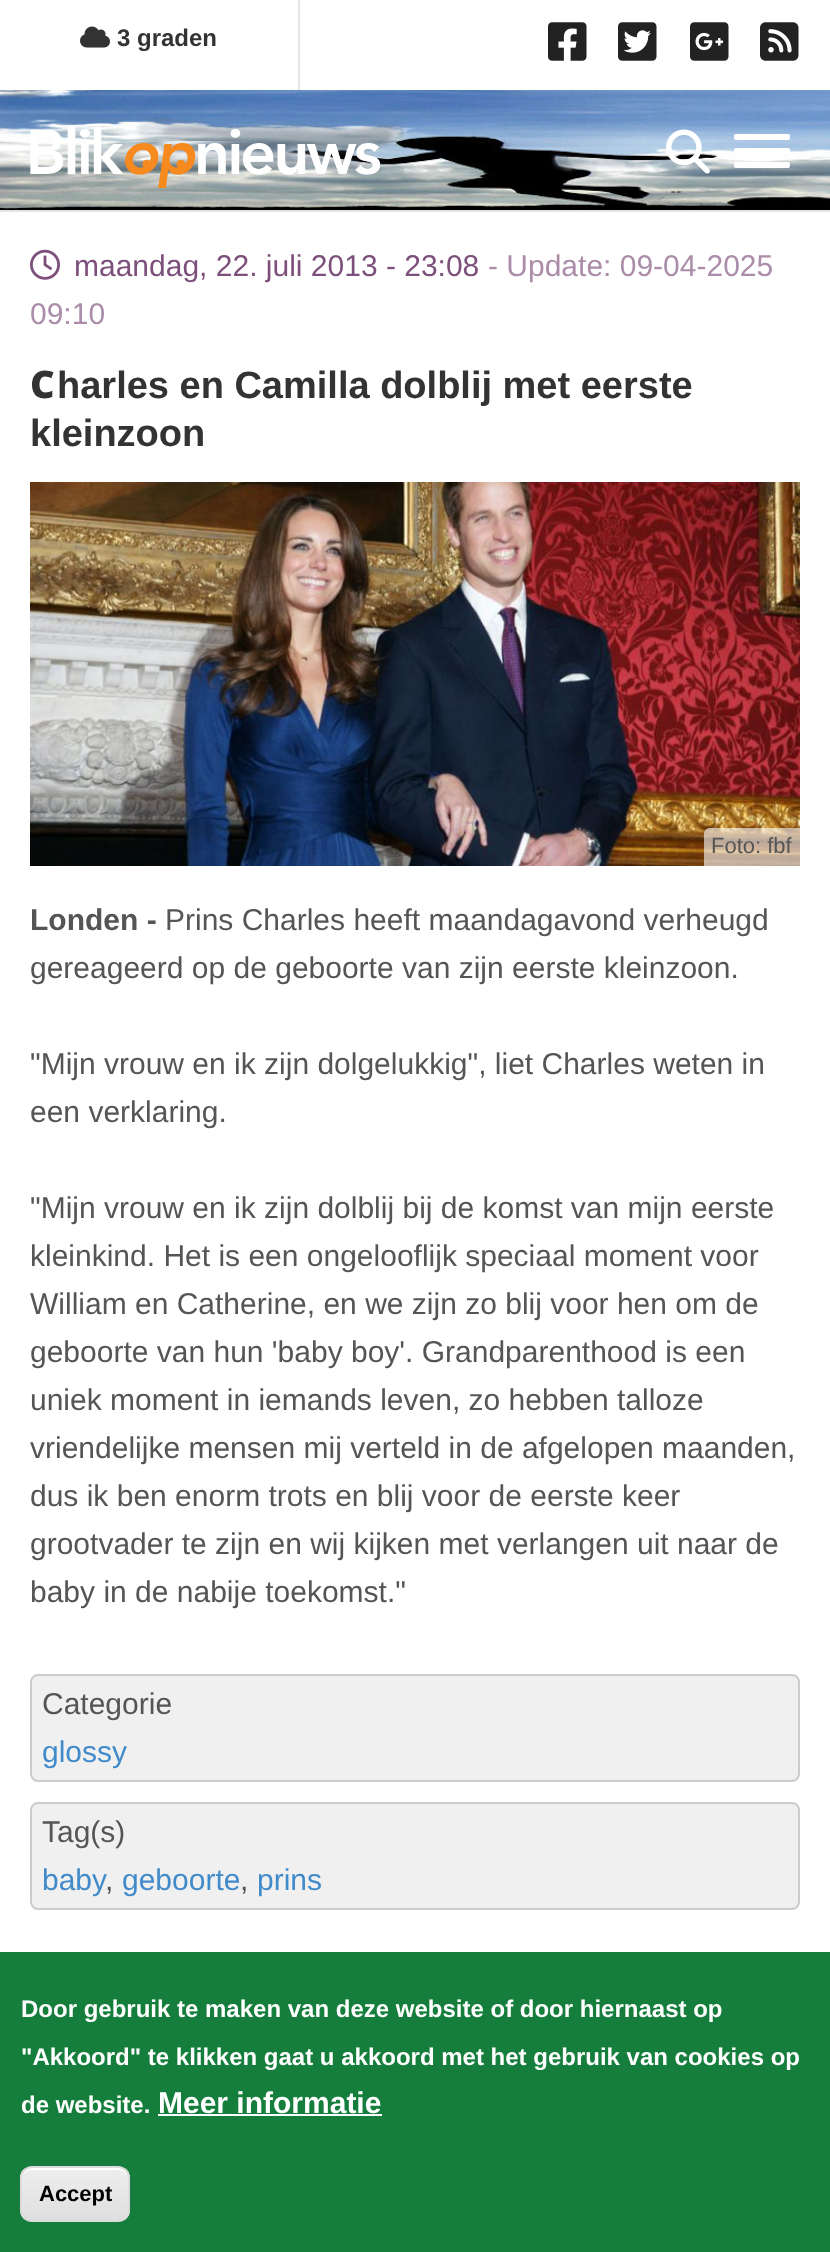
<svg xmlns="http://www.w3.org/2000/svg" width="830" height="2252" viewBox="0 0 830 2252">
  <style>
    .t1 { font: bold 24px Liberation Sans; fill: #333; }
    .t2 { font: 30px Liberation Sans; fill: #7d507b; }
    .t3 { font: 30px Liberation Sans; fill: #ab8da9; }
    .t4 { font: 900 38px Noto Sans; fill: #333; }
    .t5 { font: bold 38px Liberation Sans; fill: #333; }
    .t6 { font: 22px Liberation Sans; fill: #555; }
    .t7 { font: 30px Liberation Sans; fill: #555; }
    .t8 { font: bold 30px Liberation Sans; fill: #555; }
    .t9 { font: 30px Liberation Sans; fill: #428bca; }
    .t10 { font: bold 24px Liberation Sans; fill: #fff; }
    .t11 { font: bold 30px Liberation Sans; fill: #fff; }
    .t12 { font: bold 22px Liberation Sans; fill: #000; }
  </style>
  <defs>
    <clipPath id="clip1"><rect x="20" y="2166" width="110" height="56" rx="12"/></clipPath>
    <linearGradient id="g1" gradientUnits="userSpaceOnUse" x1="75" y1="2168" x2="75" y2="2220"><stop offset="0.05" stop-color="#ededed"/><stop offset="1" stop-color="#dfdfdf"/></linearGradient>
  </defs>
  <rect width="100%" height="100%" fill="#fff"/>
  <rect x="298" y="0" width="2" height="90" fill="#e5e5e5"/>
  <image x="80" y="26" width="30" height="22" href="images/1.png"/>
  <text x="117" y="46" class="t1">3 graden</text>
  <image x="548" y="22" width="39" height="39" href="images/2.png"/>
  <image x="618" y="22" width="39" height="39" href="images/3.png"/>
  <image x="690" y="22" width="39" height="39" href="images/4.png"/>
  <image x="760" y="22" width="39" height="39" href="images/5.png"/>
  <image x="0" y="90" width="830" height="120" href="images/6.png"/>
  <image x="30" y="126" width="350" height="62" href="images/7.png"/>
  <image x="666" y="129" width="44" height="45" href="images/8.png"/>
  <rect x="734" y="134" width="56" height="6" rx="2" fill="#fff"/>
  <rect x="734" y="148" width="56" height="6" rx="2" fill="#fff"/>
  <rect x="734" y="162" width="56" height="6" rx="2" fill="#fff"/>
  <rect x="0" y="210" width="830" height="2" fill="#e4e4e4"/>
  <image x="30" y="249" width="30" height="31" href="images/9.png"/>
  <text x="74" y="276" class="t2">maandag, 22. juli 2013 - 23:08</text>
  <text x="488" y="276" class="t3">- Update: 09-04-2025</text>
  <text x="30" y="324" class="t3">09:10</text>
  <text x="30" y="398" class="t4">C</text>
  <text x="57" y="398" class="t5">harles en Camilla dolblij met eerste</text>
  <text x="30" y="446" class="t5">kleinzoon</text>
  <image x="30" y="482" width="770" height="384" href="images/10.png"/>
  <path d="M710 828H800V866H704V834C704 830.5 706.5 828 710 828Z" fill="#ffffff99"/>
  <text x="711" y="853" class="t6">Foto: fbf</text>
  <text x="165" y="930" class="t7">Prins Charles heeft maandagavond verheugd</text>
  <text x="30" y="978" class="t7">gereageerd op de geboorte van zijn eerste kleinzoon.</text>
  <text x="30" y="930" class="t8">Londen -</text>
  <text x="30" y="1074" class="t7">"Mijn vrouw en ik zijn dolgelukkig", liet Charles weten in</text>
  <text x="30" y="1122" class="t7">een verklaring.</text>
  <text x="30" y="1218" class="t7">"Mijn vrouw en ik zijn dolblij bij de komst van mijn eerste</text>
  <text x="30" y="1266" class="t7">kleinkind. Het is een ongelooflijk speciaal moment voor</text>
  <text x="30" y="1314" class="t7">William en Catherine, en we zijn zo blij voor hen om de</text>
  <text x="30" y="1362" class="t7">geboorte van hun 'baby boy'. Grandparenthood is een</text>
  <text x="30" y="1410" class="t7">uniek moment in iemands leven, zo hebben talloze</text>
  <text x="30" y="1458" class="t7">vriendelijke mensen mij verteld in de afgelopen maanden,</text>
  <text x="30" y="1506" class="t7">dus ik ben enorm trots en blij voor de eerste keer</text>
  <text x="30" y="1554" class="t7">grootvader te zijn en wij kijken met verlangen uit naar de</text>
  <text x="30" y="1602" class="t7">baby in de nabije toekomst."</text>
  <rect x="31" y="1675" width="768" height="106" rx="7" fill="#f0f0f0" stroke="#ccc" stroke-width="2"/>
  <text x="42" y="1714" class="t7">Categorie</text>
  <text x="42" y="1762" class="t9">glossy</text>
  <rect x="31" y="1803" width="768" height="106" rx="7" fill="#f0f0f0" stroke="#ccc" stroke-width="2"/>
  <text x="42" y="1842" class="t7">Tag(s)</text>
  <text x="42" y="1890" class="t9">baby</text>
  <text x="105" y="1890" class="t7">,</text>
  <text x="122" y="1890" class="t9">geboorte</text>
  <text x="240" y="1890" class="t7">,</text>
  <text x="257" y="1890" class="t9">prins</text>
  <rect x="0" y="1952" width="830" height="300" fill="#157e3c"/>
  <text x="21" y="2017" class="t10">Door gebruik te maken van deze website of door hiernaast op</text>
  <text x="21" y="2065" class="t10">"Akkoord" te klikken gaat u akkoord met het gebruik van cookies op</text>
  <text x="21" y="2113" class="t10">de website.</text>
  <text x="158" y="2113" class="t11">Meer informatie</text>
  <rect x="158" y="2114" width="224" height="2" fill="#fff"/>
  <g clip-path="url(#clip1)">
    <rect x="20" y="2168" width="110" height="52" fill="url(#g1)"/>
  </g>
  <path d="M32 2170H118C124 2170 128 2174 128 2180C128 2165 115 2168 104 2168H46C35 2168 22 2165 22 2180C22 2174 26 2170 32 2170Z" fill="#fff"/>
  <rect x="21" y="2167" width="108" height="54" rx="11" fill="none" stroke="#dcdcdc" stroke-width="2"/>
  <text x="39" y="2201" class="t12">Accept</text>
</svg>
